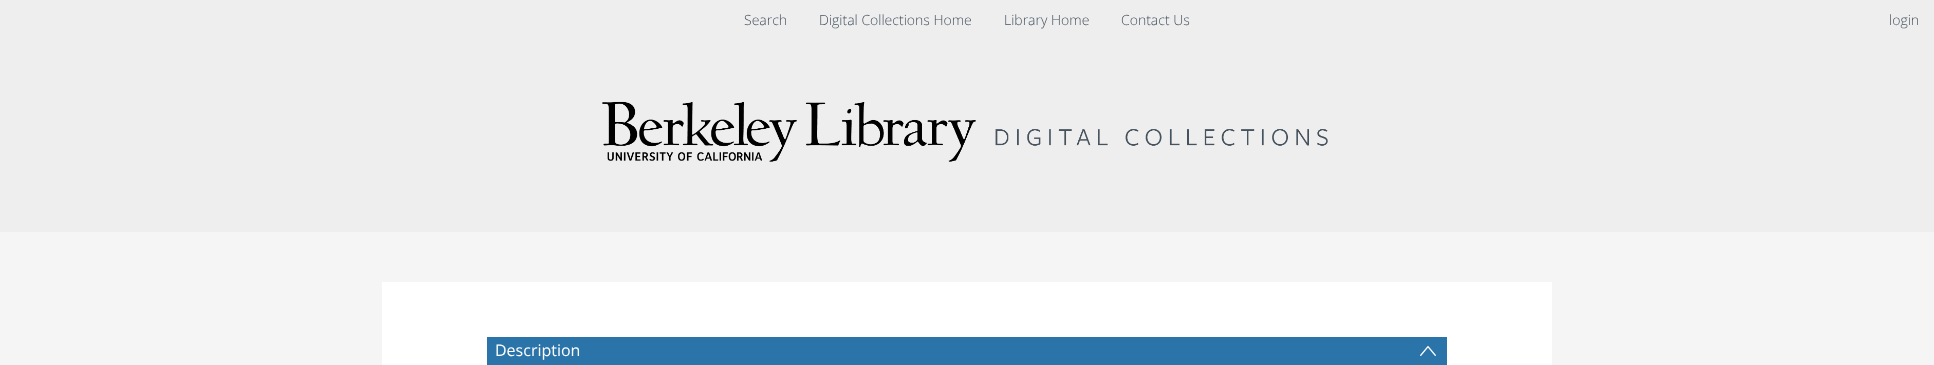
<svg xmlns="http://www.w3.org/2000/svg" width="1934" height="365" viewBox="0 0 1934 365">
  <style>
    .t1 { font: 300 14px Open Sans; fill: #46535e; }
    .t2 { font: 16px Open Sans; fill: #fff; }
  </style>
  <rect width="100%" height="100%" fill="#eee"/>
  <text x="744" y="25" class="t1">Search</text>
  <text x="819" y="25" class="t1">Digital Collections Home</text>
  <text x="1004" y="25" class="t1">Library Home</text>
  <text x="1121" y="25" class="t1">Contact Us</text>
  <text x="1889" y="25" class="t1">login</text>
  <image x="602" y="101" width="726" height="61" href="images/1.png"/>
  <rect x="0" y="232" width="1934" height="133" fill="#f5f5f5"/>
  <rect x="382" y="282" width="1170" height="83" fill="#fff"/>
  <rect x="487" y="337" width="960" height="28" fill="#2b74a9"/>
  <text x="495" y="356" class="t2">Description</text>
  <image x="1420" y="346" width="16" height="10" href="images/2.png"/>
</svg>
